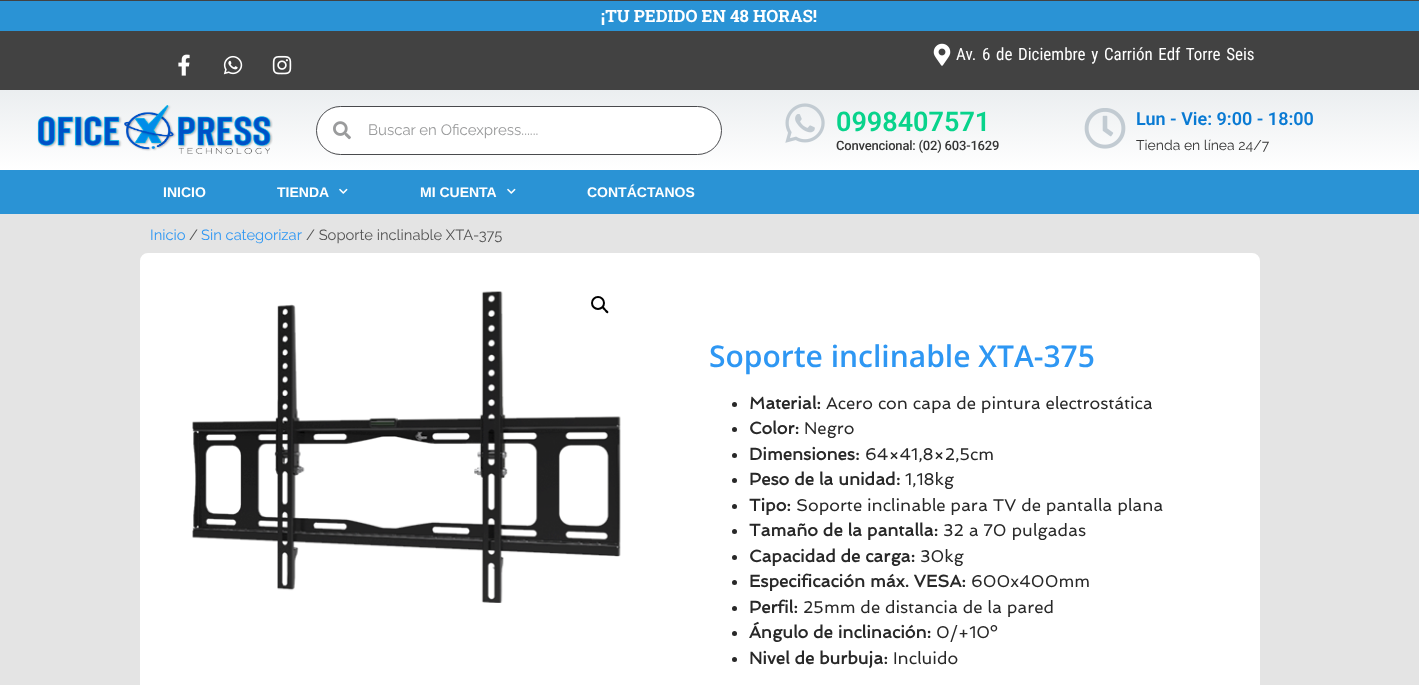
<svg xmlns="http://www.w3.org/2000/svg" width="1419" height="685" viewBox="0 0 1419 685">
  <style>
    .t1 { font: bold 17px Roboto Slab; fill: #fff; }
    .t2 { font: 17px Roboto Condensed; fill: #fff; }
    .t3 { font: 15px Raleway; fill: #9a9b9c; }
    .t4 { font: 600 27px Roboto; fill: #08d38b; }
    .t5 { font: 500 13px Roboto; letter-spacing: -0.2px; fill: #353535; }
    .t6 { font: 600 18px Roboto; fill: #097ad3; }
    .t7 { font: 14px Raleway; fill: #353535; }
    .t8 { font: bold 14px Liberation Sans; fill: #fff; }
    .t9 { font: 14.75px Raleway; fill: #2e97f3; }
    .t10 { font: 14.75px Raleway; fill: #525252; }
    .t11 { font: 600 30px Open Sans; fill: #2e97f3; }
    .t12 { font: bold 17px Spinnaker; fill: #282828; }
    .t13 { font: 17px Spinnaker; fill: #282828; }
  </style>
  <defs>
    <linearGradient id="g1" gradientUnits="userSpaceOnUse" x1="710" y1="90" x2="710" y2="170"><stop offset="0" stop-color="#ebeef0"/><stop offset="1" stop-color="#fff"/></linearGradient>
  </defs>
  <rect width="100%" height="100%" fill="#424242"/>
  <rect x="0" y="1" width="1419" height="30" fill="#2a93d5"/>
  <text x="601" y="22" class="t1">¡TU PEDIDO EN 48 HORAS!</text>
  <image x="178" y="54" width="12" height="22" href="images/1.png"/>
  <image x="223" y="55" width="20" height="20" href="images/2.png"/>
  <image x="272" y="55" width="20" height="20" href="images/3.png"/>
  <image x="933" y="43" width="18" height="23" href="images/4.png"/>
  <text x="956" y="60" word-spacing="1.75" class="t2">Av. 6 de Diciembre y Carrión Edf Torre Seis</text>
  <rect x="0" y="90" width="1419" height="80" fill="url(#g1)"/>
  <image x="37" y="105" width="236" height="49" href="images/5.png"/>
  <rect x="316.5" y="106.5" width="405" height="48" rx="24" fill="#fff" stroke="#494a4d"/>
  <image x="333" y="121" width="18" height="19" href="images/6.png"/>
  <text x="368" y="135" class="t3">Buscar en Oficexpress......</text>
  <image x="785" y="103" width="40" height="40" href="images/7.png"/>
  <text x="836" y="131" class="t4">0998407571</text>
  <text x="836" y="150" class="t5">Convencional: (02) 603-1629</text>
  <image x="1084" y="108" width="42" height="41" href="images/8.png"/>
  <text x="1136" y="125" class="t6">Lun - Vie: 9:00 - 18:00</text>
  <text x="1136" y="150" class="t7">Tienda en línea 24/7</text>
  <rect x="0" y="170" width="1419" height="44" fill="#2a93d5"/>
  <text x="163" y="197" class="t8">INICIO</text>
  <text x="277" y="197" class="t8">TIENDA</text>
  <image x="339" y="188" width="9" height="6" href="images/9.png"/>
  <text x="420" y="197" class="t8">MI CUENTA</text>
  <image x="507" y="188" width="9" height="6" href="images/9.png"/>
  <text x="587" y="197" class="t8">CONTÁCTANOS</text>
  <rect x="0" y="214" width="1419" height="471" fill="#e4e4e4"/>
  <text x="150" y="240" class="t9">Inicio</text>
  <text x="189" y="240" class="t10">/</text>
  <text x="201" y="240" class="t9">Sin categorizar</text>
  <text x="306" y="240" class="t10">/ Soporte inclinable XTA-375</text>
  <rect x="141.5" y="254.5" width="1117" height="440" rx="6.5" fill="#fff" stroke="#fff" stroke-width="3"/>
  <image x="192" y="291" width="429" height="312" href="images/10.png"/>
  <circle cx="598" cy="303" r="6" fill="none" stroke="#000" stroke-width="2"/>
  <path d="M602.5 307C603.5 306 605.5 308.5 606 309.5C606.5 310 609.5 311.5 608 313C607 314 605 311.5 604.5 310.5C604 310 601.5 308.5 602.5 307Z" fill="#000"/>
  <text x="709" y="367" class="t11">Soporte inclinable XTA-375</text>
  <circle cx="734.5" cy="404.5" r="2.5" fill="#282828"/>
  <text x="749" y="409" class="t12">Material:</text>
  <text x="826" y="409" class="t13">Acero con capa de pintura electrostática</text>
  <circle cx="734.5" cy="429.5" r="2.5" fill="#282828"/>
  <text x="749" y="434" class="t12">Color:</text>
  <text x="804" y="434" class="t13">Negro</text>
  <circle cx="734.5" cy="455.5" r="2.5" fill="#282828"/>
  <text x="749" y="460" class="t12">Dimensiones:</text>
  <text x="865" y="460" class="t13">64×41,8×2,5cm</text>
  <circle cx="734.5" cy="480.5" r="2.5" fill="#282828"/>
  <text x="749" y="485" class="t12">Peso de la unidad:</text>
  <text x="905" y="485" class="t13">1,18kg</text>
  <circle cx="734.5" cy="506.5" r="2.5" fill="#282828"/>
  <text x="749" y="511" class="t12">Tipo:</text>
  <text x="796" y="511" class="t13">Soporte inclinable para TV de pantalla plana</text>
  <circle cx="734.5" cy="531.5" r="2.5" fill="#282828"/>
  <text x="749" y="536" class="t12">Tamaño de la pantalla:</text>
  <text x="943" y="536" class="t13">32 a 70 pulgadas</text>
  <circle cx="734.5" cy="557.5" r="2.5" fill="#282828"/>
  <text x="749" y="562" class="t12">Capacidad de carga:</text>
  <text x="920" y="562" class="t13">30kg</text>
  <circle cx="734.5" cy="582.5" r="2.5" fill="#282828"/>
  <text x="749" y="587" class="t12">Especificación máx. VESA:</text>
  <text x="971" y="587" class="t13">600x400mm</text>
  <circle cx="734.5" cy="608.5" r="2.5" fill="#282828"/>
  <text x="749" y="613" class="t12">Perfil:</text>
  <text x="803" y="613" class="t13">25mm de distancia de la pared</text>
  <circle cx="734.5" cy="633.5" r="2.5" fill="#282828"/>
  <text x="749" y="638" class="t12">Ángulo de inclinación:</text>
  <text x="936" y="638" class="t13">0/+10º</text>
  <circle cx="734.5" cy="659.5" r="2.5" fill="#282828"/>
  <text x="749" y="664" class="t12">Nivel de burbuja:</text>
  <text x="893" y="664" class="t13">Incluido</text>
</svg>
